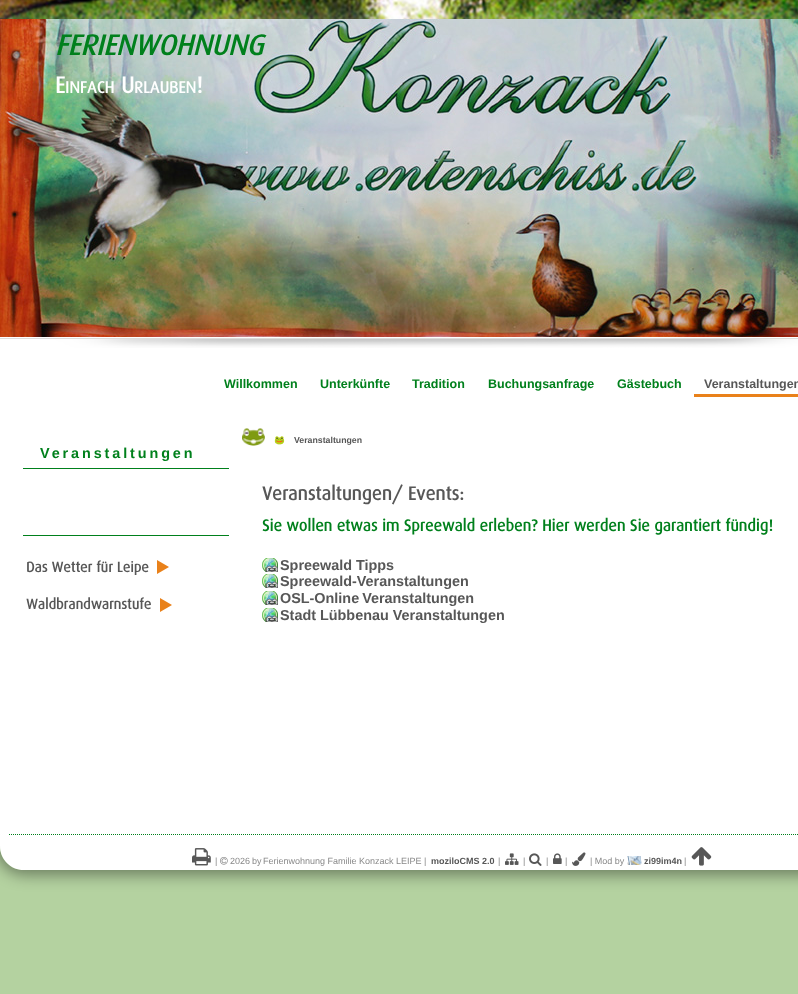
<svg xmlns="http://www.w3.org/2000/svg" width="798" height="994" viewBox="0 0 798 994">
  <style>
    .t1 { font: italic bold 28.75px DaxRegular; fill: #00801c; }
    .t2 { font: bold 23px DaxRegular; fill: #fff; }
    .t3 { font: bold 16.5px DaxRegular; fill: #fff; }
    .t4 { font: bold 12.5px Liberation Sans; fill: #00801c; }
    .t5 { font: bold 12.5px Liberation Sans; fill: #575757; }
    .t6 { font: 8.75px Noto Color Emoji; fill: #00801c; }
    .t7 { font: bold 8.75px Liberation Sans; fill: #575757; }
    .t8 { font: bold 14.4px Liberation Sans; letter-spacing: 2.9px; fill: #00801c; }
    .t9 { font: bold 14.4px DaxRegular; fill: #575757; }
    .t10 { font: bold 19px DaxRegular; fill: #575757; }
    .t11 { font: bold 16.2px DaxRegular; fill: #00801c; }
    .t12 { font: bold 14.4px Liberation Sans; fill: #575757; }
    .t13 { font: 9px Liberation Sans; fill: #898989; }
    .t14 { font: bold 9px Liberation Sans; fill: #575757; }
  </style>
  <defs>
    <clipPath id="clip1"><path d="M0 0H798V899H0ZM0 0H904V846C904 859.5 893.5 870 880 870H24C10.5 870 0 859.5 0 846Z" clip-rule="evenodd"/></clipPath>
    <linearGradient id="g1" gradientUnits="userSpaceOnUse" x1="452" y1="0" x2="452" y2="870"><stop offset="0" stop-color="#fff" stop-opacity="0"/><stop offset="0.15" stop-color="#fff"/><stop offset="1" stop-color="#fff"/></linearGradient>
  </defs>
  <rect width="100%" height="100%" fill="#b4d2a0"/>
  <image x="0" y="0" width="798" height="19" href="images/1.png"/>
  <g clip-path="url(#clip1)">
    <rect x="-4" y="-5" width="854" height="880" rx="29" fill="#00000066" filter="blur(7.5px)"/>
  </g>
  <path d="M0 0H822V846C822 859.5 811.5 870 798 870H24C10.5 870 0 859.5 0 846Z" fill="url(#g1)"/>
  <image x="0" y="19" width="798" height="318" href="images/2.png"/>
  <image x="0" y="337" width="798" height="11" href="images/3.png"/>
  <text x="55" y="55" class="t1">FERIENWOHNUNG</text>
  <text x="55" y="93" class="t2">E</text>
  <text x="65" y="93" class="t3">INFACH</text>
  <text x="121" y="93" class="t2">U</text>
  <text x="134" y="93" class="t3">RLAUBEN</text>
  <text x="196" y="93" class="t2">!</text>
  <text x="224" y="388" class="t4">Willkommen</text>
  <text x="320" y="388" class="t4">Unterkünfte</text>
  <text x="412" y="388" class="t4">Tradition</text>
  <text x="488" y="388" class="t4">Buchungsanfrage</text>
  <text x="617" y="388" class="t4">Gästebuch</text>
  <text x="704" y="388" class="t5">Veranstaltungen</text>
  <rect x="694" y="394" width="104" height="3" fill="#e9811a"/>
  <image x="242" y="428" width="23" height="18" href="images/4.png"/>
  <text x="274" y="443" class="t6">🐸</text>
  <text x="294" y="443" class="t7">Veranstaltungen</text>
  <rect x="23" y="468" width="206" height="1" fill="#00801c"/>
  <text x="40" y="458" class="t8">Veranstaltungen</text>
  <rect x="23" y="535" width="206" height="1" fill="#00801c"/>
  <text x="26" y="572" class="t9">Das Wetter für Leipe</text>
  <path d="M157 574V560L169 567Z" fill="#e9811a"/>
  <text x="26" y="609" class="t9">Waldbrandwarnstufe</text>
  <path d="M160 612V598L172 605Z" fill="#e9811a"/>
  <text x="262" y="500" class="t10">Veranstaltungen/ Events:</text>
  <text x="262" y="531" class="t11">Sie wollen etwas im Spreewald erleben? Hier werden Sie garantiert fündig!</text>
  <image x="262" y="558" width="16" height="14" href="images/5.png"/>
  <text x="280" y="570" class="t12">Spreewald Tipps</text>
  <image x="262" y="574" width="16" height="14" href="images/5.png"/>
  <text x="280" y="586" class="t12">Spreewald-Veranstaltungen</text>
  <image x="262" y="591" width="16" height="14" href="images/5.png"/>
  <text x="280" y="603" word-spacing="-1" class="t12">OSL-Online Veranstaltungen</text>
  <image x="262" y="608" width="16" height="14" href="images/5.png"/>
  <text x="280" y="620" class="t12">Stadt Lübbenau Veranstaltungen</text>
  <path d="M9 834.5H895" fill="none" stroke="#00801c" stroke-dasharray="1 1"/>
  <image x="192" y="848" width="19" height="18" href="images/6.png"/>
  <text x="215" y="864" class="t13">|</text>
  <image x="220" y="857" width="8" height="8" href="images/7.png"/>
  <text x="230" y="864" class="t13">2026</text>
  <text x="252" y="864" class="t13">by</text>
  <text x="263" y="864" class="t13">Ferienwohnung Familie Konzack LEIPE |</text>
  <text x="431" y="864" class="t14">moziloCMS 2.0</text>
  <text x="498" y="864" class="t13">|</text>
  <image x="505" y="853" width="14" height="12" href="images/8.png"/>
  <text x="523" y="864" class="t13">|</text>
  <image x="529" y="853" width="13" height="13" href="images/9.png"/>
  <text x="546" y="864" class="t13">|</text>
  <image x="553" y="853" width="9" height="11" href="images/10.png"/>
  <text x="565" y="864" class="t13">|</text>
  <image x="572" y="852" width="14" height="14" href="images/11.png"/>
  <text x="590" y="864" class="t13">| Mod by</text>
  <image x="627" y="856" width="15" height="9" href="images/12.png"/>
  <text x="644" y="864" class="t14">zi99im4n</text>
  <text x="684" y="864" class="t13">|</text>
  <image x="691" y="847" width="21" height="19" href="images/13.png"/>
</svg>
